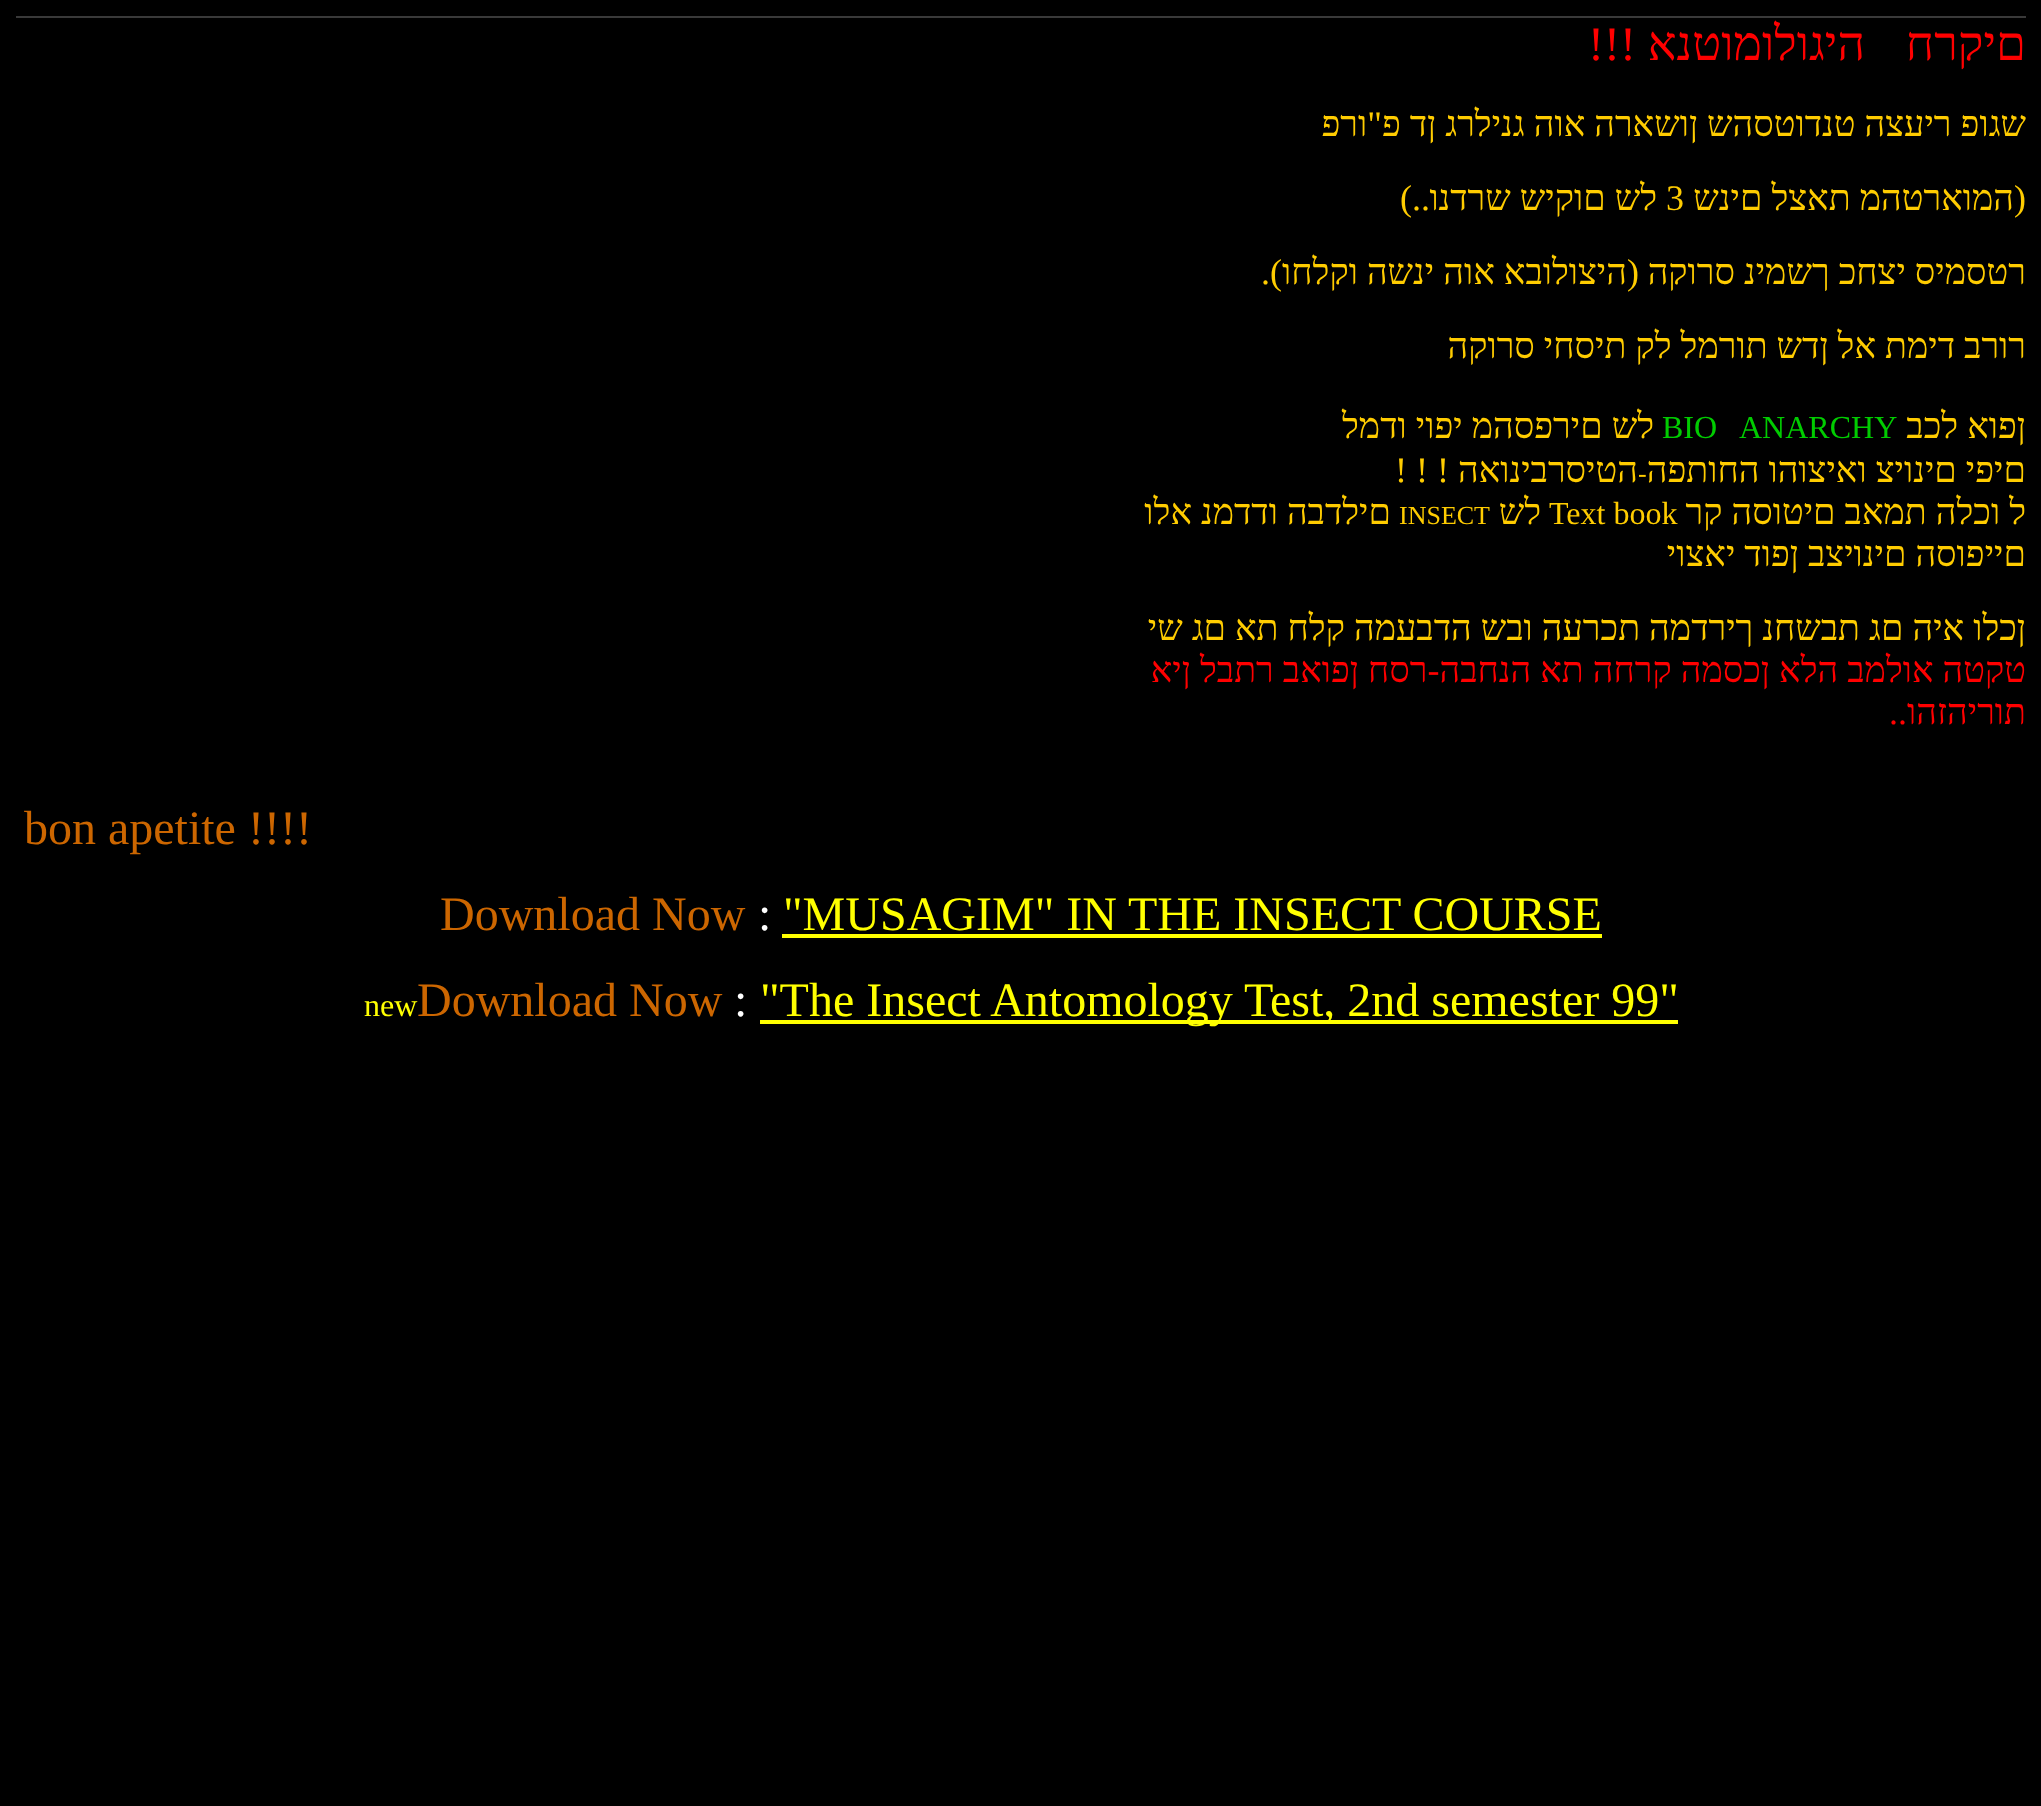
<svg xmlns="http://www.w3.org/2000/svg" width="2041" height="1806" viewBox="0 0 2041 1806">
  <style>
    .t1 { font: 48px Liberation Serif; direction: rtl; fill: #f00; }
    .t2 { font: 48px Liberation Serif; fill: #f00; }
    .t3 { font: 36px Liberation Serif; direction: rtl; fill: #fc0; }
    .t4 { font: 36px Liberation Serif; fill: #fc0; }
    .t5 { font: 32px Liberation Serif; fill: #0c0; }
    .t6 { font: 26px Liberation Serif; fill: #fc0; }
    .t7 { font: 32px Liberation Serif; fill: #fc0; }
    .t8 { font: 36px Liberation Serif; direction: rtl; fill: #f00; }
    .t9 { font: 36px Liberation Serif; fill: #f00; }
    .t10 { font: 48px Liberation Serif; fill: #c60; }
    .t11 { font: 48px Liberation Serif; fill: #ff0; }
    .t12 { font: 48px Liberation Serif; fill: #fff; }
    .t13 { font: 32px Liberation Serif; fill: #ff0; }
  </style>
  <rect width="100%" height="100%" fill="#000"/>
  <rect x="16" y="16" width="2010" height="2" fill="#393939"/>
  <text x="2026" y="60" class="t1">םיקרח</text>
  <text x="1865" y="60" class="t1">היגולומוטנא</text>
  <text x="1588" y="60" class="t2">!!!</text>
  <text x="2026" y="136" class="t3">שגופ ריעצה טנדוטסהש ןושארה אוה גנילרג ןד פ"ורפ</text>
  <text x="2014" y="210" class="t4">)</text>
  <text x="2014" y="210" class="t3">המוארטהמ תאצל םינש</text>
  <text x="1666" y="210" class="t4">3</text>
  <text x="1657" y="210" class="t3">לש םוקיש שרדנו</text>
  <text x="1400" y="210" class="t4">(..</text>
  <text x="2026" y="284" class="t3">רטסמיס יצחכ ךשמינ סרוקה</text>
  <text x="1627" y="284" class="t4">)</text>
  <text x="1627" y="284" class="t3">היצולובא אוה ינשה וקלחו</text>
  <text x="1261" y="284" class="t4">.(</text>
  <text x="2026" y="358" class="t3">רורב דימת אל ןדש תורמל לק תיסחי סרוקה</text>
  <text x="2026" y="438" class="t3">ןפוא לכב</text>
  <text x="1739" y="438" class="t5">ANARCHY</text>
  <text x="1662" y="438" class="t5">BIO</text>
  <text x="1654" y="438" class="t3">לש םירפסהמ יפוי ודמל</text>
  <text x="2026" y="482" class="t3">םיפי םינויצ ואיצוהו החותפה</text>
  <text x="1638" y="482" class="t6">-</text>
  <text x="1638" y="482" class="t3">הטיסרבינואה</text>
  <text x="1395" y="482" class="t4">! ! !</text>
  <text x="2026" y="524" class="t3">ל וכלה תמאב םיטוסה קר</text>
  <text x="1549" y="524" class="t7">Text book</text>
  <text x="1541" y="524" class="t3">לש</text>
  <text x="1399" y="524" class="t6">INSECT</text>
  <text x="1391" y="524" class="t3">םילדבה ודדמנ אלו</text>
  <text x="2026" y="566" class="t3">םייפוסה םינויצב ןפוד יאצוי</text>
  <text x="2026" y="640" class="t3">ןכלו איה םג תבשחנ ךירדמה תכרעה ובש הדבעמה קלח תא םג שי</text>
  <text x="2026" y="682" class="t8">טקטה אולמב הלא ןכסמה קרחה תא הנחבה-רסח ןפואב רתבל ןיא</text>
  <text x="2026" y="724" class="t8">תוריהזהו</text>
  <text x="1889" y="724" class="t9">..</text>
  <text x="24" y="844" class="t10">bon apetite !!!!</text>
  <text x="783" y="930" class="t11">"MUSAGIM" IN THE INSECT COURSE</text>
  <rect x="782" y="934" width="820" height="4" fill="#ff0"/>
  <text x="758" y="930" class="t12">:</text>
  <text x="440" y="930" class="t10">Download Now</text>
  <rect x="760" y="1020" width="918" height="4" fill="#ff0"/>
  <text x="760" y="1016" class="t11">"The Insect Antomology Test, 2nd semester 99"</text>
  <text x="734" y="1016" class="t12">:</text>
  <text x="417" y="1016" class="t10">Download Now</text>
  <text x="364" y="1016" class="t13">new</text>
</svg>
